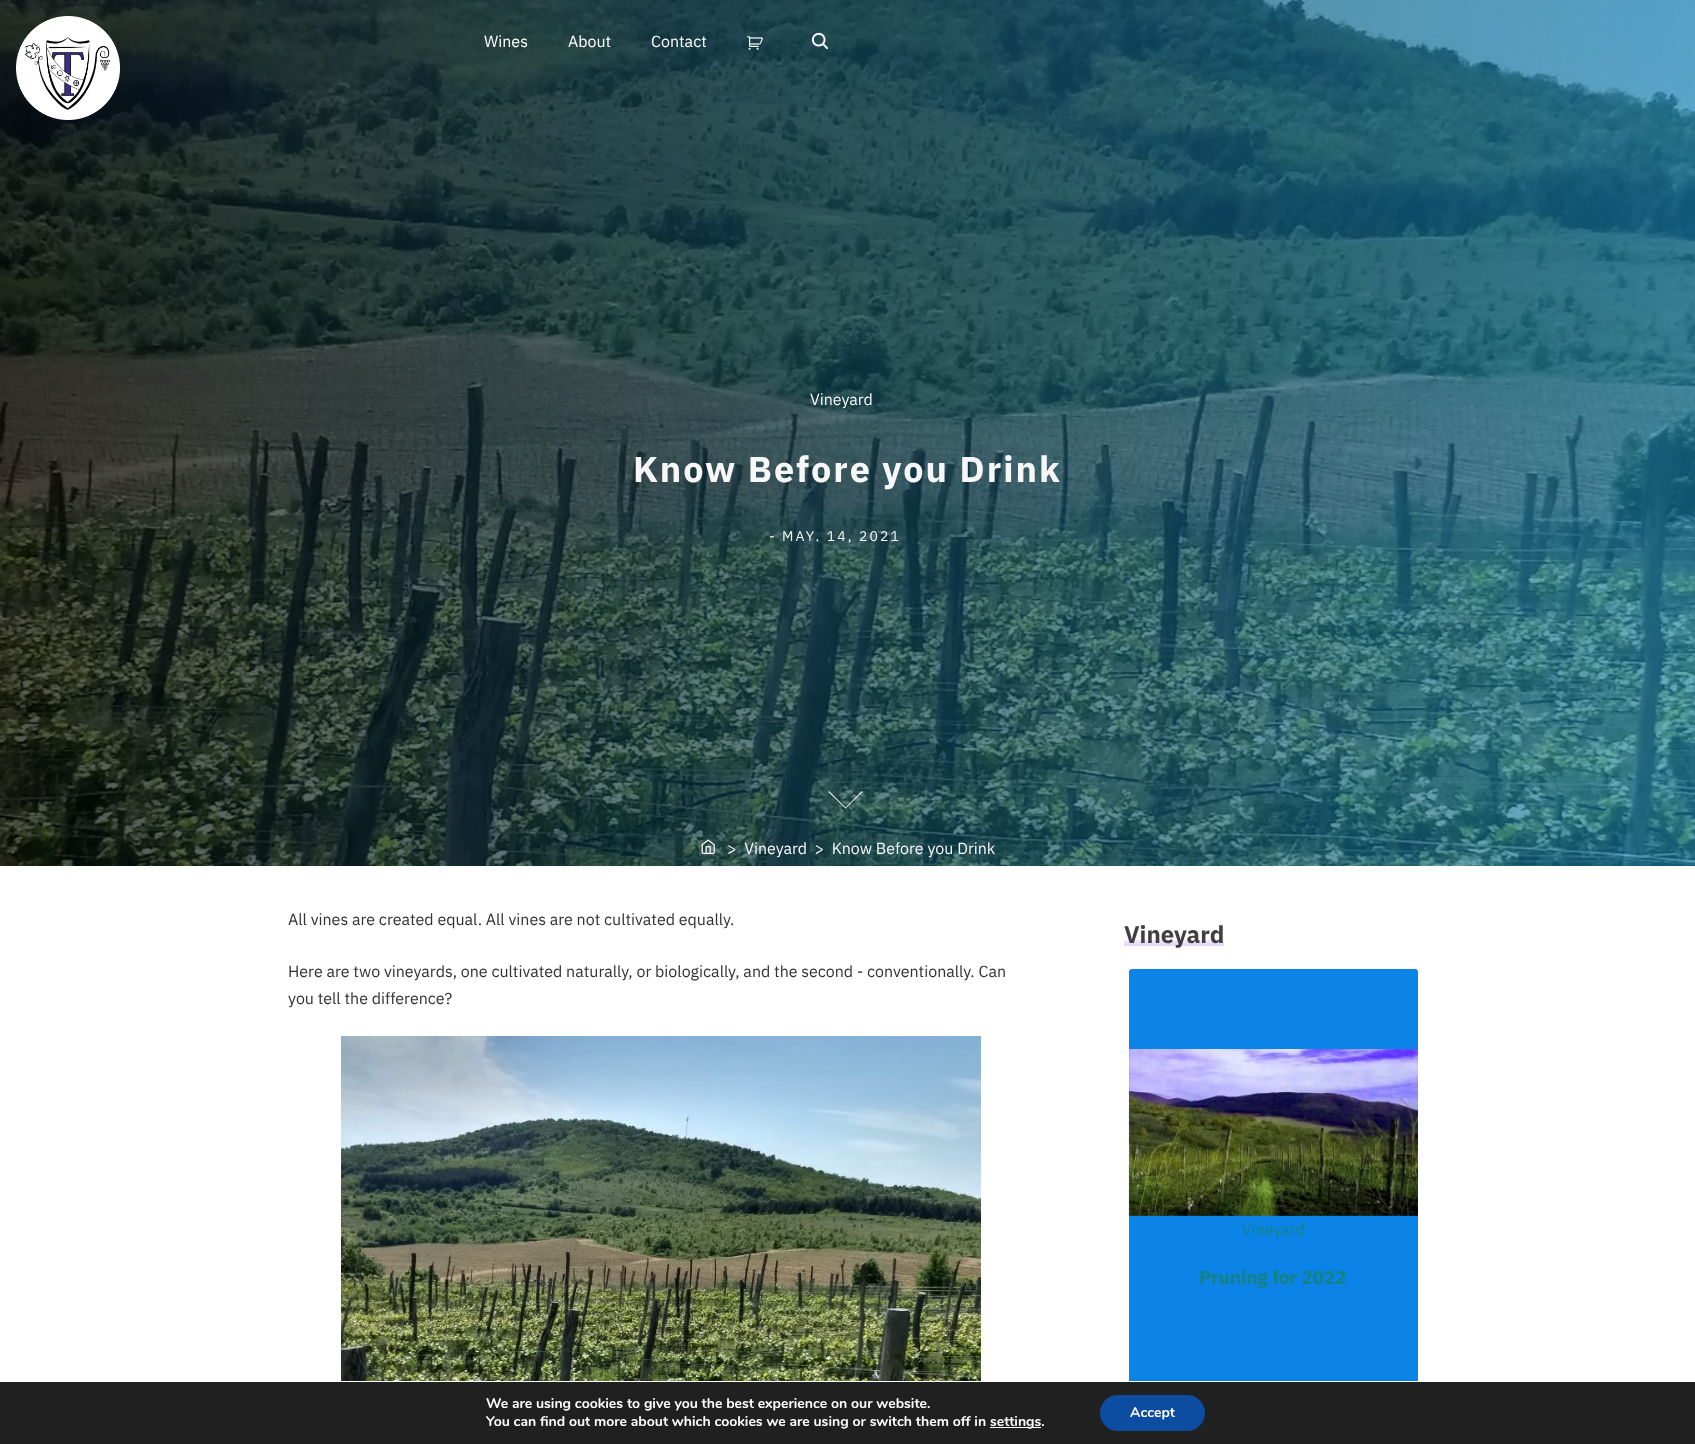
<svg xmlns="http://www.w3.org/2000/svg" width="1695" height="1444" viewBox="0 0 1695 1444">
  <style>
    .t1 { font: 16px IBM Plex Sans; fill: #fff; }
    .t2 { font: 16px IBM Plex Sans; fill: #f7f7f7; }
    .t3 { font: bold 36px IBM Plex Sans; letter-spacing: 2px; fill: #f7f7f7; }
    .t4 { font: 14px IBM Plex Sans; letter-spacing: 2.1px; fill: #f7f7f7; }
    .t5 { font: 16px IBM Plex Sans; fill: #333; }
    .t6 { font: bold 24px IBM Plex Sans; fill: #404040; }
    .t7 { font: 16px IBM Plex Sans; fill: #128284; }
    .t8 { font: bold 18.75px IBM Plex Sans; fill: #128284; }
    .t9 { font: bold 14px Nunito; fill: #fff; }
  </style>
  <defs>
    <linearGradient id="g1" gradientUnits="userSpaceOnUse" x1="1174" y1="940" x2="1174" y2="946"><stop offset="0" stop-color="#f1eafc"/><stop offset="1" stop-color="#e3d5f9"/></linearGradient>
  </defs>
  <rect width="100%" height="100%" fill="#fff"/>
  <image x="0" y="0" width="1695" height="866" href="images/4.png"/>
  <image x="16" y="16" width="104" height="104" href="images/1.png"/>
  <text x="484" y="47" class="t1">Wines</text>
  <text x="568" y="47" class="t1">About</text>
  <text x="651" y="47" class="t1">Contact</text>
  <image x="747" y="36" width="16" height="14" href="images/2.png"/>
  <image x="811" y="32" width="17" height="17" href="images/3.png"/>
  <text x="810" y="405" class="t2">Vineyard</text>
  <text x="633" y="482" class="t3">Know Before you Drink</text>
  <text x="769" y="541" class="t4">- MAY. 14, 2021</text>
  <path d="M845 808L862 791L862.5 792L845.5 808.5Z" fill="#fff"/>
  <path d="M828.5 792L829 791L846 808L845.5 808.5Z" fill="#fff"/>
  <image x="701" y="839" width="14" height="16" href="images/5.png"/>
  <text x="727" y="854" class="t2" xml:space="preserve">&gt;  Vineyard  &gt;  Know Before you Drink</text>
  <text x="288" y="925" class="t5">All vines are created equal. All vines are not cultivated equally.</text>
  <text x="288" y="977" class="t5">Here are two vineyards, one cultivated naturally, or biologically, and the second - conventionally. Can</text>
  <text x="288" y="1004" class="t5">you tell the difference?</text>
  <image x="341" y="1036" width="640" height="345" href="images/6.png"/>
  <rect x="1124" y="940" width="100" height="6" fill="url(#g1)"/>
  <text x="1124" y="943" class="t6">Vineyard</text>
  <rect x="1129" y="969" width="289" height="423" rx="3" fill="#0c83e7"/>
  <image x="1128" y="1049" width="290" height="167" href="images/7.png"/>
  <text x="1242" y="1235" class="t7">Vineyard</text>
  <text x="1199" y="1284" class="t8">Pruning for 2022</text>
  <rect x="0" y="1382" width="1695" height="62" fill="#202020"/>
  <rect x="1129" y="1381" width="289" height="1" fill="#fff"/>
  <text x="486" y="1408" class="t9">We are using cookies to give you the best experience on our website.</text>
  <text x="486" y="1426" class="t9">You can find out more about which cookies we are using or switch them off in</text>
  <rect x="990" y="1427" width="51" height="1" fill="#fff"/>
  <text x="990" y="1426" class="t9">settings.</text>
  <rect x="1100" y="1395" width="105" height="36" rx="18" fill="#0c4da2"/>
  <text x="1130" y="1417" class="t9">Accept</text>
</svg>
